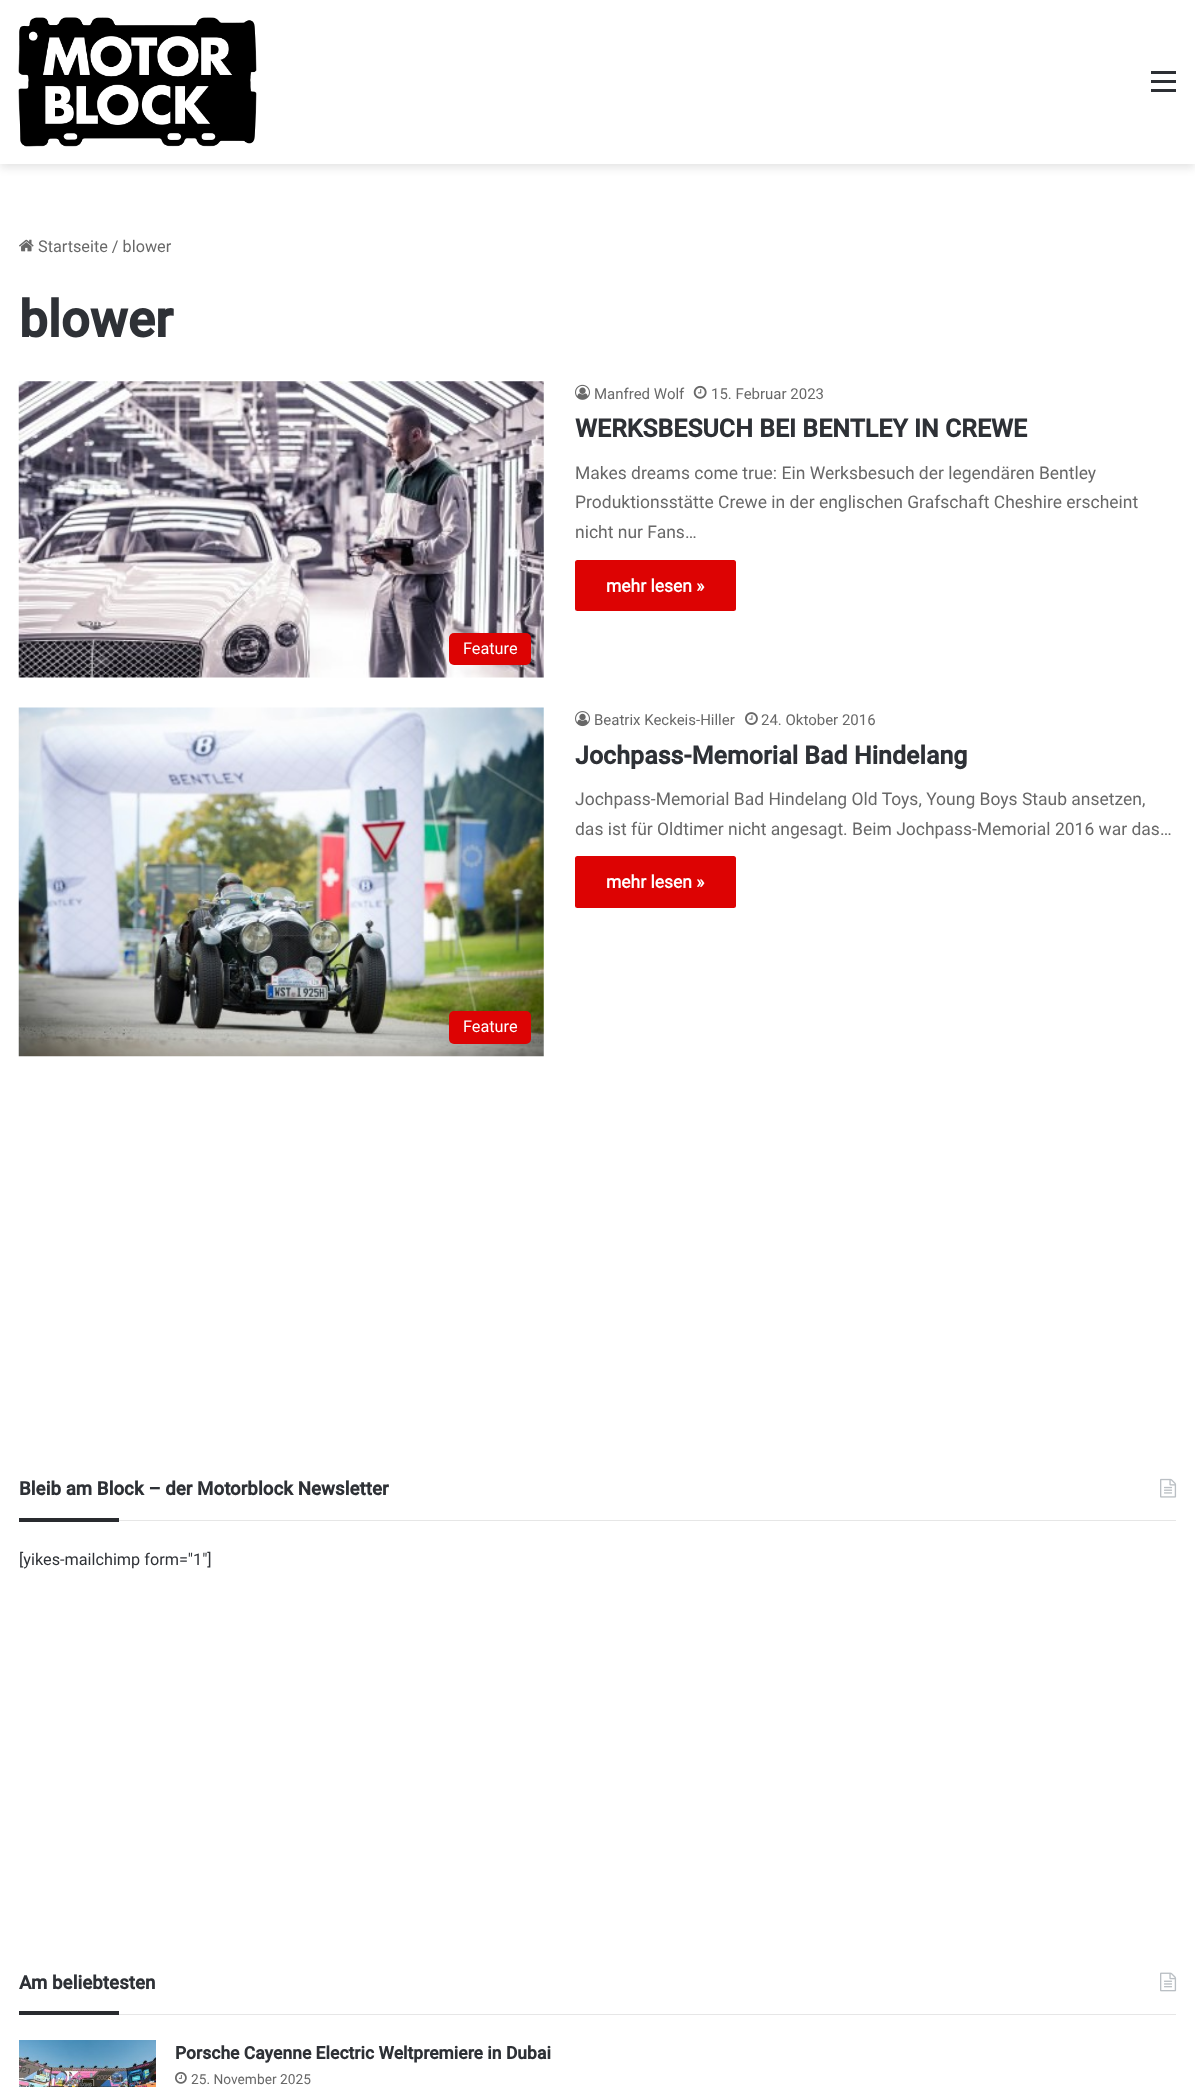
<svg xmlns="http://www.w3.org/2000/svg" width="1195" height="2087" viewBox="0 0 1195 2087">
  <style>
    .t1 { font: 16.25px Roboto; fill: #686868; }
    .t2 { font: bold 51px Roboto; fill: #2e3136; }
    .t3 { font: 15px Roboto; fill: #686868; }
    .t4 { font: bold 25px Roboto; fill: #2e3136; }
    .t5 { font: 17.5px Roboto; fill: #686868; }
    .t6 { font: bold 17.5px 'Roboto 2'; fill: #fff; }
    .t7 { font: 16.25px Roboto; fill: #fff; }
    .t8 { font: bold 18.75px Roboto; fill: #2e3136; }
    .t9 { font: 16.25px Roboto; fill: #2e3136; }
    .t10 { font: bold 17.5px Roboto; fill: #2e3136; }
    .t11 { font: 13.75px Roboto; fill: #686868; }
  </style>
  <rect width="100%" height="100%" fill="#fff"/>
  <rect x="0" y="4" width="1195" height="164" fill="#0000001a" filter="blur(4.5px)"/>
  <rect x="0" y="0" width="1195" height="164" fill="#fff"/>
  <image x="18" y="17" width="239" height="130" href="images/1.png"/>
  <rect x="1151" y="80" width="25" height="3" fill="#2c2f34"/>
  <rect x="1151" y="71" width="25" height="3" fill="#2c2f34"/>
  <rect x="1151" y="89" width="25" height="3" fill="#2c2f34"/>
  <image x="19" y="239" width="15" height="13" href="images/2.png"/>
  <text x="38" y="252" class="t1">Startseite / blower</text>
  <text x="19" y="337" class="t2">blower</text>
  <image x="575" y="384" width="15" height="16" href="images/3.png"/>
  <text x="594" y="399" class="t3">Manfred Wolf</text>
  <image x="693" y="385" width="14" height="14" href="images/4.png"/>
  <text x="711" y="399" class="t3">15. Februar 2023</text>
  <text x="575" y="437" class="t4">WERKSBESUCH BEI BENTLEY IN CREWE</text>
  <text x="575" y="479" class="t5">Makes dreams come true: Ein Werksbesuch der legendären Bentley</text>
  <text x="575" y="508" class="t5">Produktionsstätte Crewe in der englischen Grafschaft Cheshire erscheint</text>
  <text x="575" y="538" class="t5">nicht nur Fans…</text>
  <rect x="575" y="560" width="161" height="51" rx="2.5" fill="#dd0303"/>
  <text x="606" y="592" class="t6">mehr lesen »</text>
  <image x="18" y="381" width="526" height="297" href="images/5.png"/>
  <rect x="449" y="633" width="82" height="32" rx="5" fill="#dd0303"/>
  <text x="463" y="654" class="t7">Feature</text>
  <image x="575" y="711" width="15" height="16" href="images/6.png"/>
  <text x="594" y="725" class="t3">Beatrix Keckeis-Hiller</text>
  <image x="745" y="712" width="13" height="13" href="images/7.png"/>
  <text x="761" y="725" class="t3">24. Oktober 2016</text>
  <text x="575" y="764" class="t4">Jochpass-Memorial Bad Hindelang</text>
  <text x="575" y="805" class="t5">Jochpass-Memorial Bad Hindelang Old Toys, Young Boys Staub ansetzen,</text>
  <text x="575" y="835" class="t5">das ist für Oldtimer nicht angesagt. Beim Jochpass-Memorial 2016 war das…</text>
  <rect x="575" y="856" width="161" height="52" rx="2.5" fill="#dd0303"/>
  <text x="606" y="888" class="t6">mehr lesen »</text>
  <image x="18" y="707" width="526" height="350" href="images/8.png"/>
  <rect x="449" y="1011" width="82" height="33" rx="5" fill="#dd0303"/>
  <text x="463" y="1032" class="t7">Feature</text>
  <rect x="119" y="1520" width="1057" height="1" fill="#e6e6e6"/>
  <text x="19" y="1495" class="t8">Bleib am Block – der Motorblock Newsletter</text>
  <image x="1160" y="1478" width="17" height="20" href="images/9.png"/>
  <rect x="19" y="1518" width="100" height="4" fill="#292b2f"/>
  <text x="19" y="1565" class="t9">[yikes-mailchimp form="1"]</text>
  <rect x="119" y="2014" width="1057" height="1" fill="#e6e6e6"/>
  <text x="19" y="1989" class="t8">Am beliebtesten</text>
  <image x="1160" y="1972" width="17" height="20" href="images/10.png"/>
  <rect x="19" y="2011" width="100" height="4" fill="#292b2f"/>
  <image x="19" y="2040" width="137" height="47" href="images/11.png"/>
  <text x="175" y="2059" class="t10">Porsche Cayenne Electric Weltpremiere in Dubai</text>
  <image x="175" y="2072" width="12" height="12" href="images/12.png"/>
  <text x="191" y="2084" class="t11">25. November 2025</text>
</svg>
